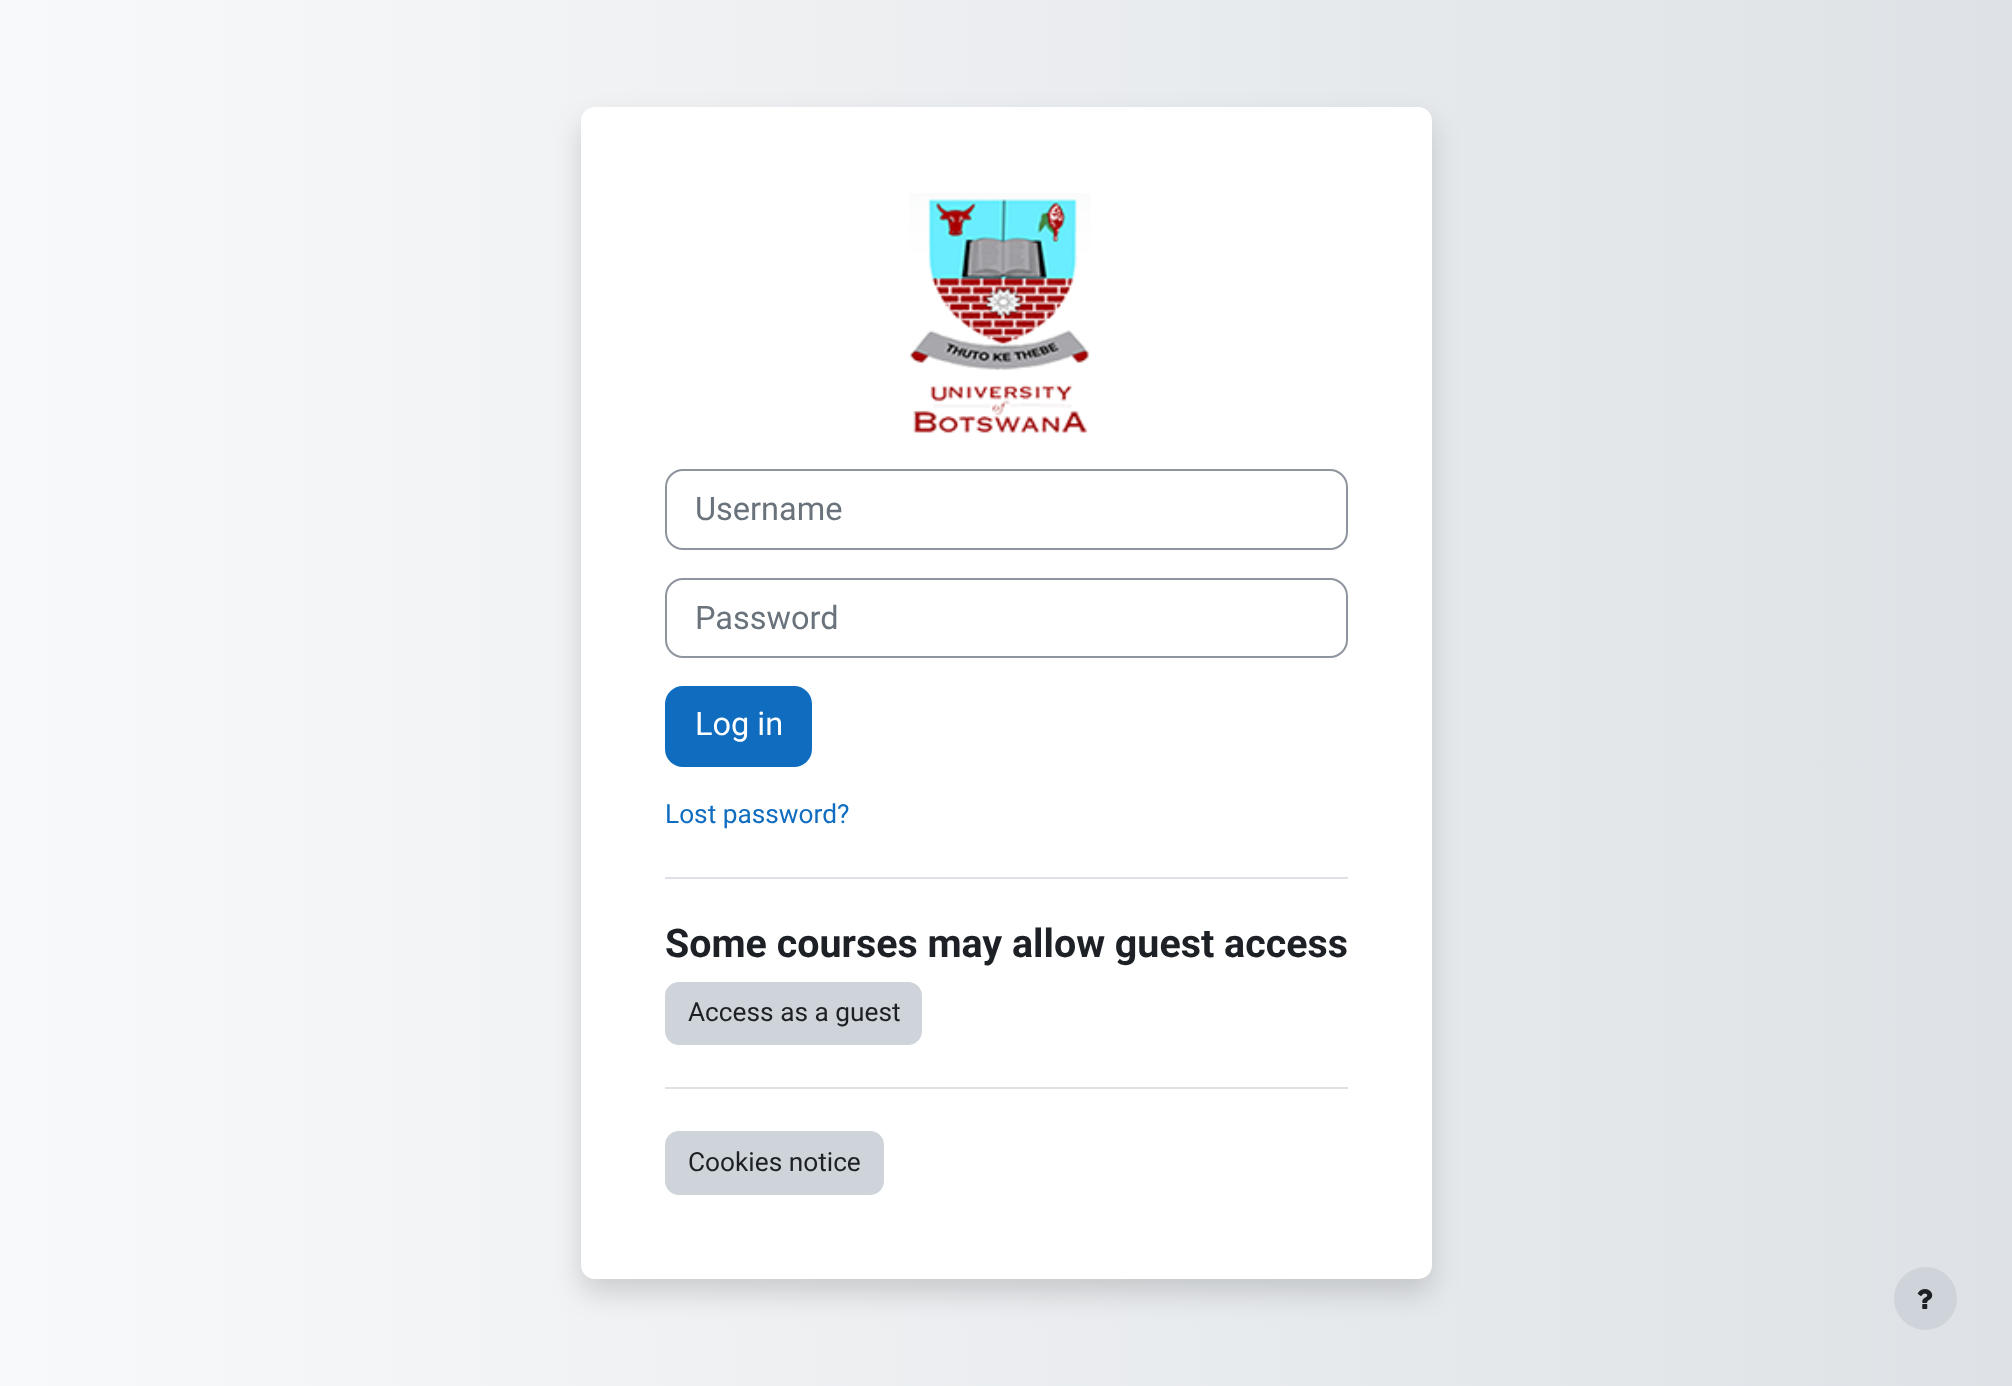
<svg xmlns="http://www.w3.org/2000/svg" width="2012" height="1386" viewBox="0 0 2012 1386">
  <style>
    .t1 { font: 32.5px Roboto; fill: #6a737b; }
    .t2 { font: 32.5px Roboto; fill: #fff; }
    .t3 { font: 26.25px Roboto; fill: #0f6cbf; }
    .t4 { font: bold 39.4px Roboto; fill: #1d2125; }
    .t5 { font: 26.25px Roboto; fill: #1d2125; }
  </style>
  <defs>
    <linearGradient id="g1" gradientUnits="userSpaceOnUse" x1="0" y1="693" x2="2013" y2="693"><stop offset="0" stop-color="#f8f9fa"/><stop offset="1" stop-color="#dee2e6"/></linearGradient>
  </defs>
  <rect width="100%" height="100%" fill="#fff"/>
  <rect x="0" y="0" width="2012" height="1386" fill="url(#g1)"/>
  <rect x="581" y="121" width="851" height="1172" rx="14" fill="#00000026" filter="blur(14px)"/>
  <rect x="581" y="107" width="851" height="1172" rx="14" fill="#fff"/>
  <image x="909" y="193" width="182" height="240" href="images/1.png"/>
  <rect x="666" y="470" width="681" height="79" rx="17" fill="none" stroke="#8f959e" stroke-width="2"/>
  <text x="695" y="520" class="t1">Username</text>
  <rect x="666" y="579" width="681" height="78" rx="17" fill="none" stroke="#8f959e" stroke-width="2"/>
  <text x="695" y="629" class="t1">Password</text>
  <rect x="666" y="687" width="145" height="79" rx="17" fill="#0f6cbf" stroke="#0f6cbf" stroke-width="2"/>
  <text x="695" y="735" class="t2">Log in</text>
  <text x="665" y="823" class="t3">Lost password?</text>
  <rect x="665" y="877" width="683" height="2" fill="#dee2e6"/>
  <text x="665" y="957" class="t4">Some courses may allow guest access</text>
  <rect x="666" y="983" width="255" height="61" rx="13" fill="#ced4da" stroke="#ced4da" stroke-width="2"/>
  <text x="688" y="1021" class="t5">Access as a guest</text>
  <rect x="665" y="1087" width="683" height="2" fill="#dee2e6"/>
  <rect x="666" y="1132" width="217" height="62" rx="13" fill="#ced4da" stroke="#ced4da" stroke-width="2"/>
  <text x="688" y="1171" class="t5">Cookies notice</text>
  <circle cx="1925.5" cy="1298.5" r="31.5" fill="#ced4da"/>
  <image x="1917" y="1289" width="16" height="20" href="images/2.png"/>
</svg>
